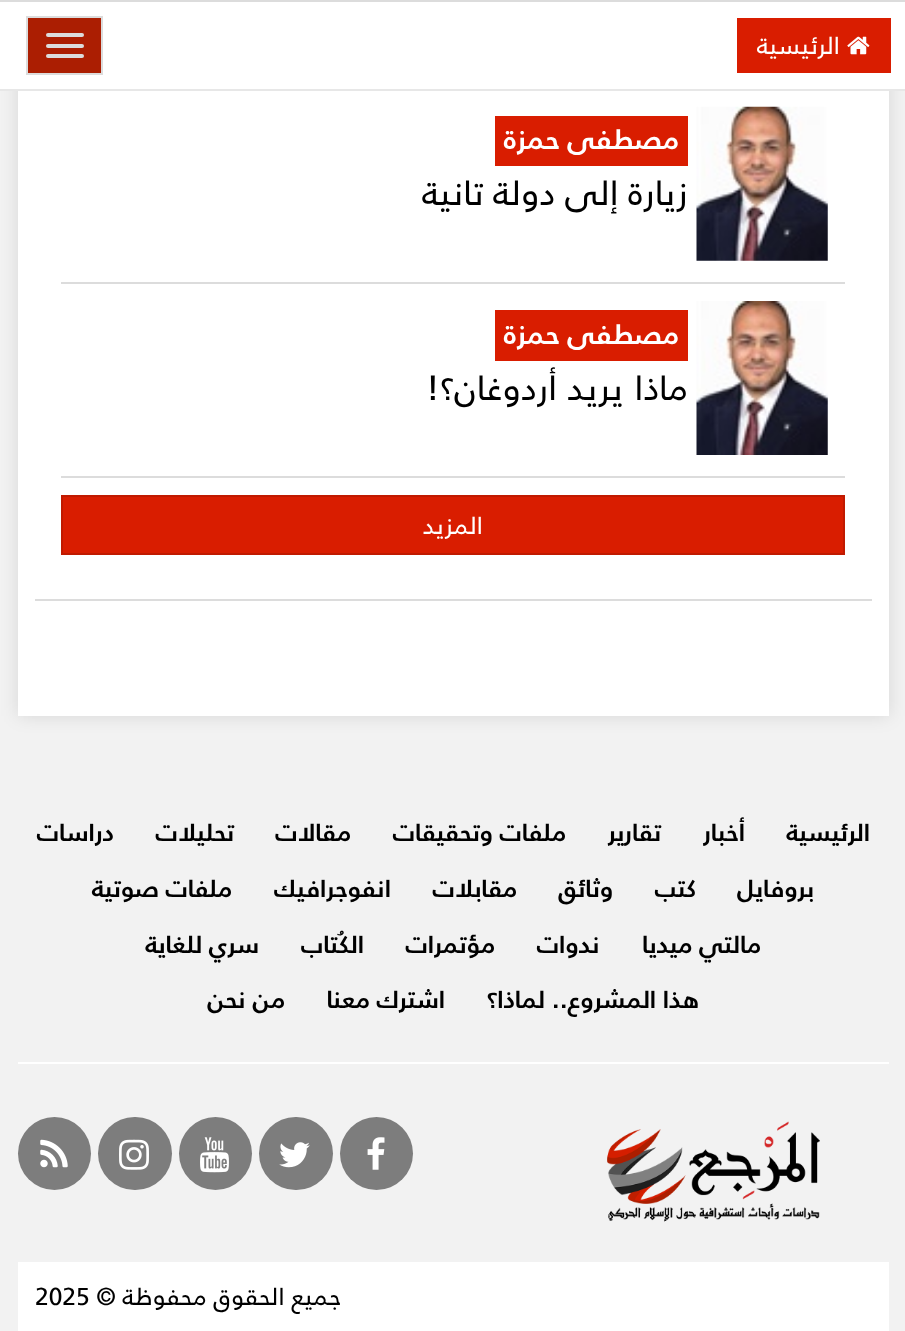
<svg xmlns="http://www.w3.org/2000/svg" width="905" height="1331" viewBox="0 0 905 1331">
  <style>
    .t1 { font: 24.5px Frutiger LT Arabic; direction: rtl; fill: #fff; }
    .t2 { font: bold 28px Frutiger LT Arabic; direction: rtl; fill: #fff; }
    .t3 { font: 35px Frutiger LT Arabic; direction: rtl; fill: #000; }
    .t4 { font: bold 24.5px Frutiger LT Arabic; direction: rtl; fill: #000; }
    .t5 { font: 24.5px Frutiger LT Arabic; direction: rtl; fill: #000; }
    .t6 { font: 24.5px Frutiger LT Arabic; fill: #000; }
  </style>
  <rect width="100%" height="100%" fill="#f2f2f2"/>
  <rect x="18" y="-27" width="871" height="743" fill="#0000001c" filter="blur(9px)"/>
  <rect x="0" y="2" width="905" height="87" fill="#fff"/>
  <rect x="0" y="0" width="905" height="2" fill="#dcdcdc"/>
  <rect x="0" y="89" width="905" height="2" fill="#e7e7e7"/>
  <rect x="737" y="18" width="154" height="55" fill="#d91d00"/>
  <image x="847" y="36" width="23" height="19" href="images/1.png"/>
  <text x="840" y="54" class="t1">الرئيسية</text>
  <rect x="27" y="17" width="75" height="57" fill="#ab1e02" stroke="#dcdcdc" stroke-width="2"/>
  <rect x="46" y="33" width="38" height="4" rx="2" fill="#dcdcdc"/>
  <rect x="46" y="44" width="38" height="4" rx="2" fill="#dcdcdc"/>
  <rect x="46" y="54" width="38" height="4" rx="2" fill="#dcdcdc"/>
  <rect x="18" y="91" width="871" height="625" fill="#fff"/>
  <rect x="35" y="599" width="837" height="2" fill="#dcdcdc"/>
  <rect x="61" y="282" width="784" height="2" fill="#dcdcdc"/>
  <image x="696" y="106" width="132" height="155" href="images/2.png"/>
  <rect x="495" y="116" width="193" height="50" fill="#d91d00"/>
  <text x="679" y="149" class="t2">مصطفى حمزة</text>
  <text x="688" y="205" class="t3">زيارة إلى دولة تانية</text>
  <rect x="61" y="476" width="784" height="2" fill="#dcdcdc"/>
  <image x="696" y="301" width="132" height="154" href="images/3.png"/>
  <rect x="495" y="310" width="193" height="51" fill="#d91d00"/>
  <text x="679" y="344" class="t2">مصطفى حمزة</text>
  <text x="688" y="400" class="t3">ماذا يريد أردوغان؟!</text>
  <rect x="62" y="496" width="782" height="58" fill="#d91d00" stroke="#c01a00" stroke-width="2"/>
  <text x="483" y="534" class="t1">المزيد</text>
  <rect x="18" y="1062" width="871" height="2" fill="#fff"/>
  <text x="870" y="841" class="t4">الرئيسية</text>
  <text x="745" y="841" class="t4">أخبار</text>
  <text x="661" y="841" class="t4">تقارير</text>
  <text x="566" y="841" class="t4">ملفات وتحقيقات</text>
  <text x="351" y="841" class="t4">مقالات</text>
  <text x="234" y="841" class="t4">تحليلات</text>
  <text x="114" y="841" class="t4">دراسات</text>
  <text x="814" y="897" class="t4">بروفايل</text>
  <text x="696" y="897" class="t4">كتب</text>
  <text x="613" y="897" class="t4">وثائق</text>
  <text x="517" y="897" class="t4">مقابلات</text>
  <text x="391" y="897" class="t4">انفوجرافيك</text>
  <text x="232" y="897" class="t4">ملفات صوتية</text>
  <text x="761" y="953" class="t4">مالتي ميديا</text>
  <text x="600" y="953" class="t4">ندوات</text>
  <text x="495" y="953" class="t4">مؤتمرات</text>
  <text x="364" y="953" class="t4">الكُتاب</text>
  <text x="259" y="953" class="t4">سري للغاية</text>
  <text x="699" y="1008" class="t4">هذا المشروع.. لماذا؟</text>
  <text x="445" y="1008" class="t4">اشترك معنا</text>
  <text x="285" y="1008" class="t4">من نحن</text>
  <image x="607" y="1121" width="213" height="101" href="images/4.png"/>
  <circle cx="376.5" cy="1153.5" r="36.5" fill="#7d7d7d"/>
  <image x="367" y="1137" width="18" height="33" href="images/5.png"/>
  <rect x="259" y="1117" width="74" height="73" rx="36.5" fill="#7d7d7d"/>
  <image x="279" y="1142" width="31" height="26" href="images/6.png"/>
  <circle cx="215.5" cy="1153.5" r="36.5" fill="#7d7d7d"/>
  <image x="200" y="1137" width="29" height="36" href="images/7.png"/>
  <rect x="98" y="1117" width="74" height="73" rx="36.5" fill="#7d7d7d"/>
  <image x="119" y="1139" width="30" height="31" href="images/8.png"/>
  <circle cx="54.5" cy="1153.5" r="36.5" fill="#7d7d7d"/>
  <image x="40" y="1139" width="28" height="29" href="images/9.png"/>
  <rect x="18" y="1262" width="871" height="69" fill="#fff"/>
  <text x="341" y="1305" class="t5">جميع الحقوق محفوظة ©</text>
  <text x="35" y="1305" class="t6">2025</text>
</svg>
